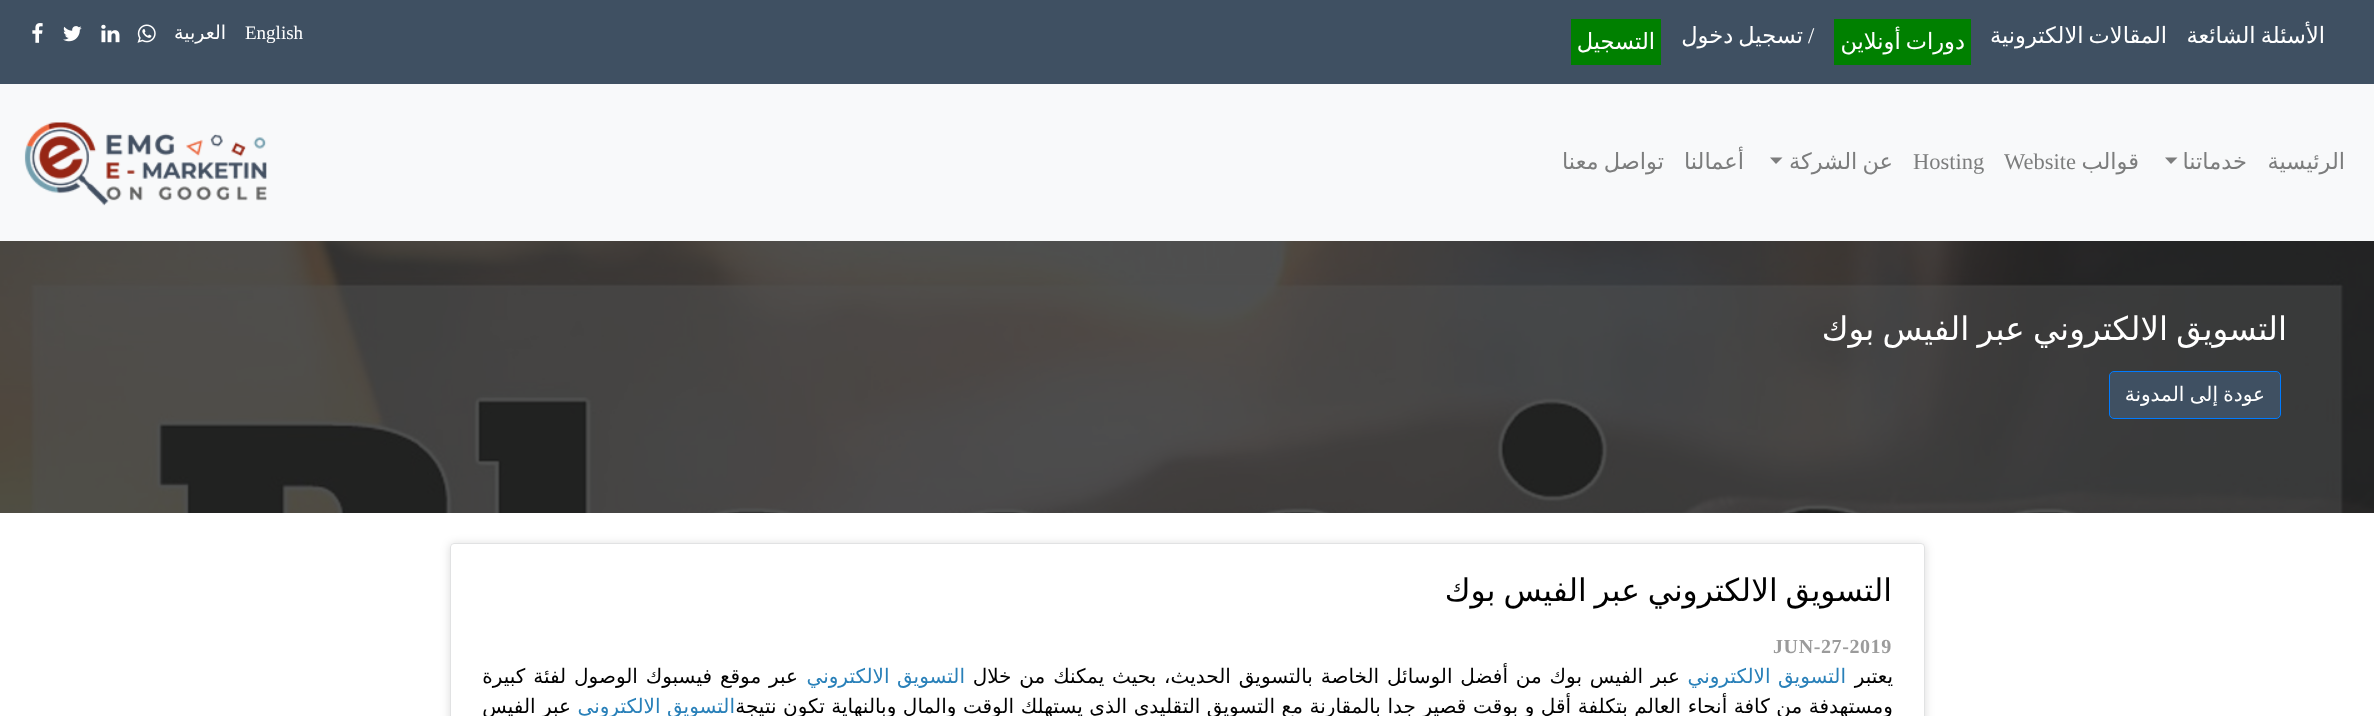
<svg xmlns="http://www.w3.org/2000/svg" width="2374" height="716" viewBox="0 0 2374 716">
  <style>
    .t1 { font: 22.5px DejaVu Sans; direction: rtl; fill: #fff; }
    .t2 { font: 22.5px Liberation Serif; fill: #fff; }
    .t3 { font: 19px Liberation Serif; fill: #fff; }
    .t4 { font: 19px DejaVu Sans; direction: rtl; fill: #fff; }
    .t5 { font: 22.5px DejaVu Sans; direction: rtl; fill: #7c7d7d; }
    .t6 { font: 22.5px Liberation Serif; fill: #7c7d7d; }
    .t7 { font: 32.5px DejaVu Sans; direction: rtl; fill: #fff; }
    .t8 { font: 20px DejaVu Sans; direction: rtl; fill: #fff; }
    .t9 { font: 31.25px DejaVu Sans; direction: rtl; fill: #000; }
    .t10 { font: bold 20px Liberation Serif; letter-spacing: 0.6px; fill: #9b9b9b; }
    .t11 { font: 20px DejaVu Sans; direction: rtl; fill: #000; }
    .t12 { font: 20px DejaVu Sans; direction: rtl; fill: #2980b9; }
  </style>
  <defs>
    <clipPath id="clip1"><path d="M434 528H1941V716H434ZM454 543H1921C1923 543 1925 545 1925 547V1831C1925 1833 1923 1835 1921 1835H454C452 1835 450 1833 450 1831V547C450 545 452 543 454 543Z" clip-rule="evenodd"/></clipPath>
  </defs>
  <rect width="100%" height="100%" fill="#fff"/>
  <rect x="0" y="0" width="2374" height="84" fill="#3f5062"/>
  <text x="2325" y="43" word-spacing="-2" class="t1">الأسئلة الشائعة</text>
  <text x="2167" y="43" word-spacing="-2" class="t1">المقالات الالكترونية</text>
  <rect x="1834" y="19" width="137" height="46" fill="#008000"/>
  <text x="1965" y="49" word-spacing="-2" class="t1">دورات أونلاين</text>
  <text x="1808" y="43" class="t2">/</text>
  <text x="1803" y="43" word-spacing="-2" class="t1">تسجيل دخول</text>
  <rect x="1571" y="19" width="90" height="46" fill="#008000"/>
  <text x="1655" y="49" class="t1">التسجيل</text>
  <text x="245" y="39" class="t3">English</text>
  <text x="226" y="39" class="t4">العربية</text>
  <image x="137" y="24" width="19" height="19" href="images/1.png"/>
  <image x="101" y="24" width="19" height="19" href="images/2.png"/>
  <image x="63" y="26" width="19" height="16" href="images/3.png"/>
  <image x="32" y="23" width="11" height="20" href="images/4.png"/>
  <rect x="0" y="84" width="2374" height="157" fill="#f8f9fa"/>
  <text x="2345" y="169" class="t5">الرئيسية</text>
  <text x="2247" y="169" class="t5">خدماتنا</text>
  <path d="M2165 157.5H2177.5L2171 164Z" fill="#7c7d7d"/>
  <text x="2139" y="169" class="t5">قوالب</text>
  <text x="2004" y="169" class="t6">Website</text>
  <text x="1913" y="169" class="t6">Hosting</text>
  <text x="1893" y="169" word-spacing="-2" class="t5">عن الشركة</text>
  <path d="M1770 157.5H1782.5L1776 164Z" fill="#7c7d7d"/>
  <text x="1744" y="169" class="t5">أعمالنا</text>
  <text x="1664" y="169" word-spacing="-2" class="t5">تواصل معنا</text>
  <image x="24" y="122" width="243" height="84" href="images/5.png"/>
  <image x="0" y="241" width="2374" height="272" href="images/6.png"/>
  <text x="2287" y="340" word-spacing="-2" class="t7">التسويق الالكتروني عبر الفيس بوك</text>
  <rect x="2109.5" y="371.5" width="171" height="47" rx="4.5" fill="#3f5062" stroke="#007bff"/>
  <text x="2265" y="401" word-spacing="-1" class="t8">عودة إلى المدونة</text>
  <g clip-path="url(#clip1)">
    <rect x="450" y="544" width="1475" height="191" rx="4" fill="#00000026" filter="blur(5px)"/>
  </g>
  <rect x="450.5" y="543.5" width="1474" height="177" rx="3.5" fill="none" stroke="#e1e2e3"/>
  <text x="1892" y="601" word-spacing="-2" class="t9">التسويق الالكتروني عبر الفيس بوك</text>
  <text x="1773" y="653" class="t10">JUN-27-2019</text>
  <text x="1893" y="683" class="t11">يعتبر</text>
  <text x="1846" y="683" word-spacing="1" class="t12">التسويق الالكتروني</text>
  <text x="1680" y="683" word-spacing="1.5" class="t11">عبر الفيس بوك من أفضل الوسائل الخاصة بالتسويق الحديث، بحيث يمكنك من خلال</text>
  <text x="965" y="683" word-spacing="1" class="t12">التسويق الالكتروني</text>
  <text x="798" y="683" word-spacing="1.5" class="t11">عبر موقع فيسبوك الوصول لفئة كبيرة</text>
  <text x="1893" y="713" word-spacing="0.2" class="t11">ومستهدفة من كافة أنحاء العالم بتكلفة أقل و بوقت قصير جدا بالمقارنة مع التسويق التقليدي الذي يستهلك الوقت والمال وبالنهاية تكون نتيجة</text>
  <text x="735" y="713" class="t12">التسويق الالكتروني</text>
  <text x="571" y="713" class="t11">عبر الفيس</text>
</svg>
